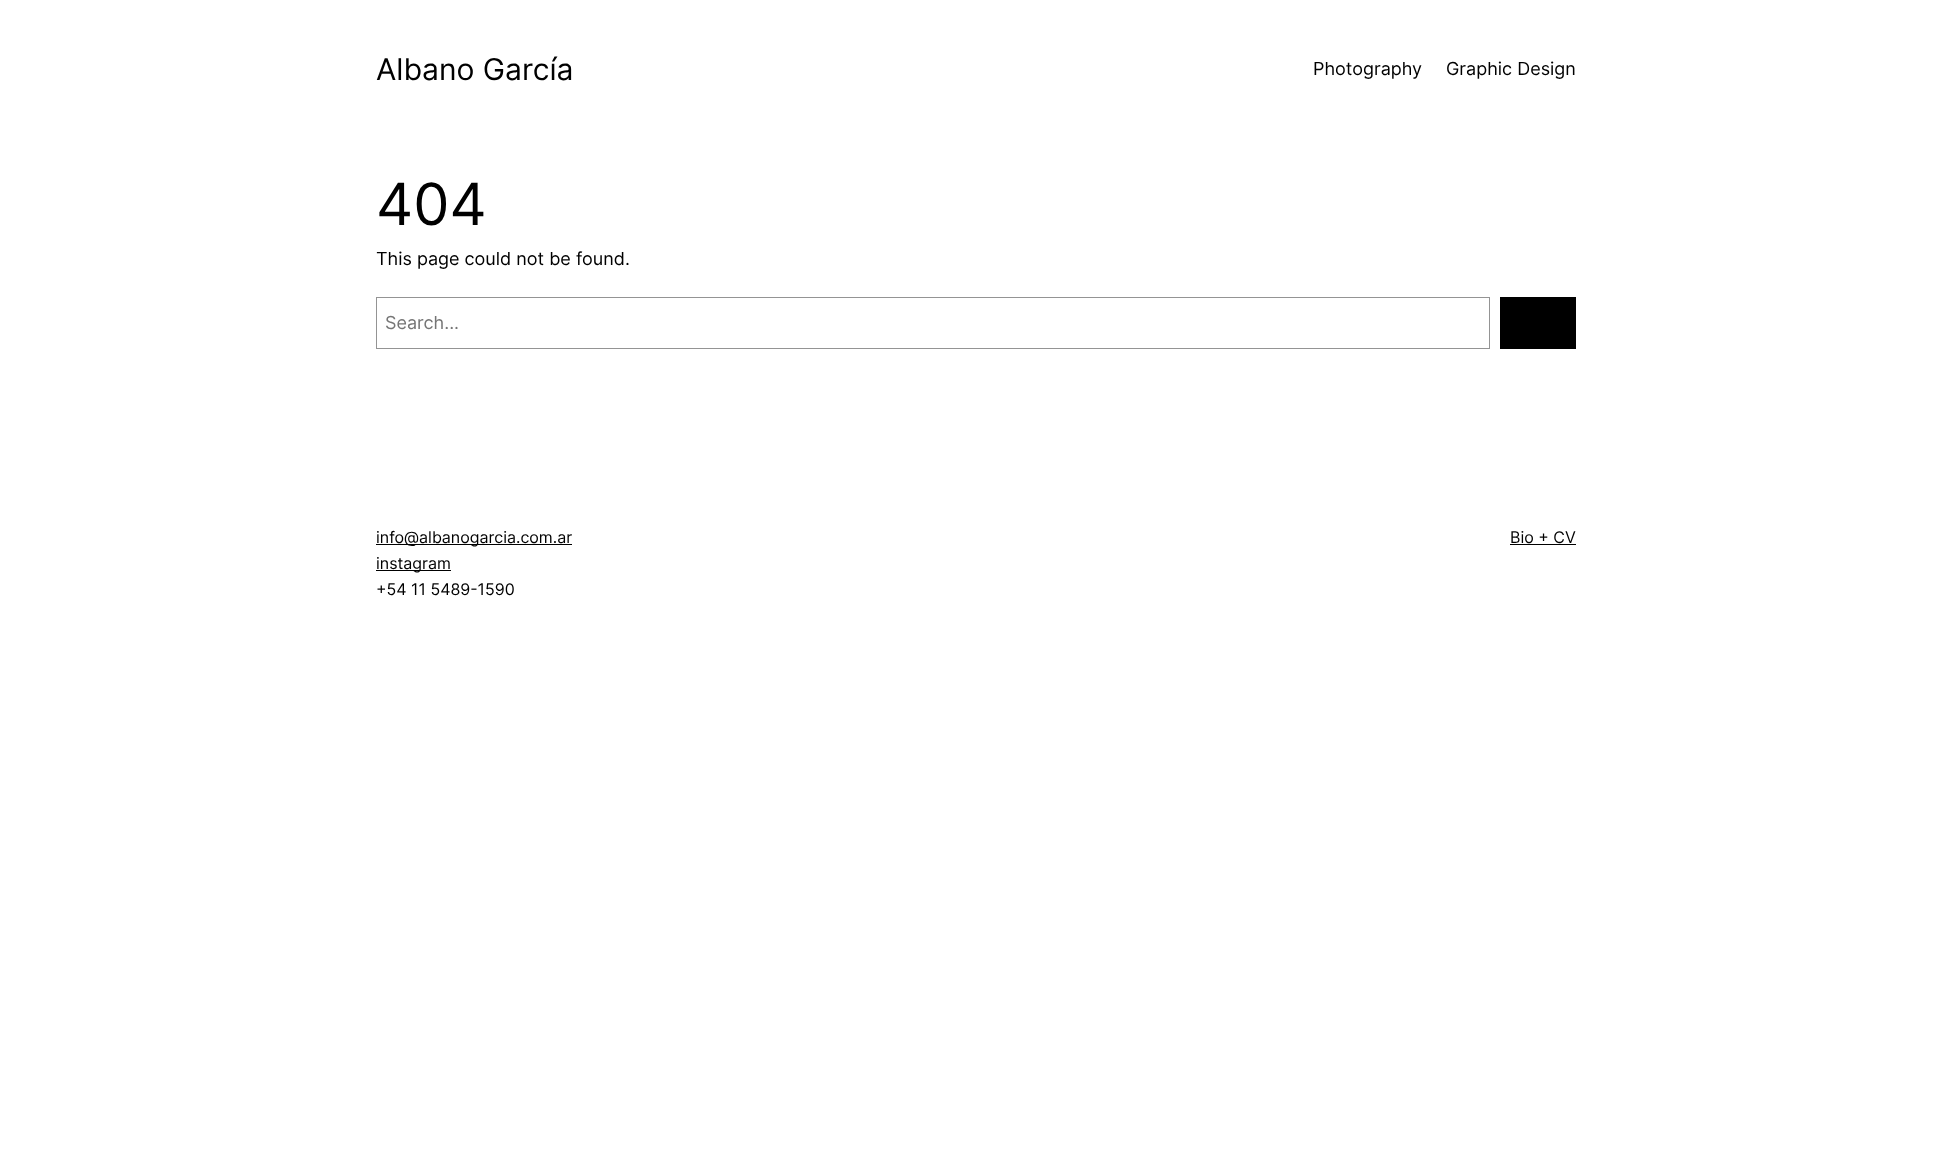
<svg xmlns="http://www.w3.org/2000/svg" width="1951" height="1174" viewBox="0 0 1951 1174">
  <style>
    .t1 { font: 30px Inter; fill: #000; }
    .t2 { font: 18px Inter; fill: #000; }
    .t3 { font: 58px Inter; fill: #000; }
    .t4 { font: 18px Inter; fill: #757575; }
    .t5 { font: 16px Inter; fill: #000; }
  </style>
  <rect width="100%" height="100%" fill="#fff"/>
  <text x="376" y="80" class="t1">Albano García</text>
  <text x="1313" y="75" class="t2">Photography</text>
  <text x="1446" y="75" class="t2">Graphic Design</text>
  <text x="376" y="225" class="t3">404</text>
  <text x="376" y="265" class="t2">This page could not be found.</text>
  <rect x="376.5" y="297.5" width="1113" height="51" fill="none" stroke="#949494"/>
  <text x="385" y="329" class="t4">Search...</text>
  <rect x="1500" y="297" width="76" height="52" fill="#000"/>
  <rect x="376" y="544" width="196" height="1" fill="#000"/>
  <text x="376" y="543" class="t5">info@albanogarcia.com.ar</text>
  <rect x="376" y="570" width="75" height="1" fill="#000"/>
  <text x="376" y="569" class="t5">instagram</text>
  <text x="376" y="595" class="t5">+54 11 5489-1590</text>
  <text x="1510" y="543" class="t5">Bio + CV</text>
  <rect x="1510" y="544" width="66" height="1" fill="#000"/>
</svg>
